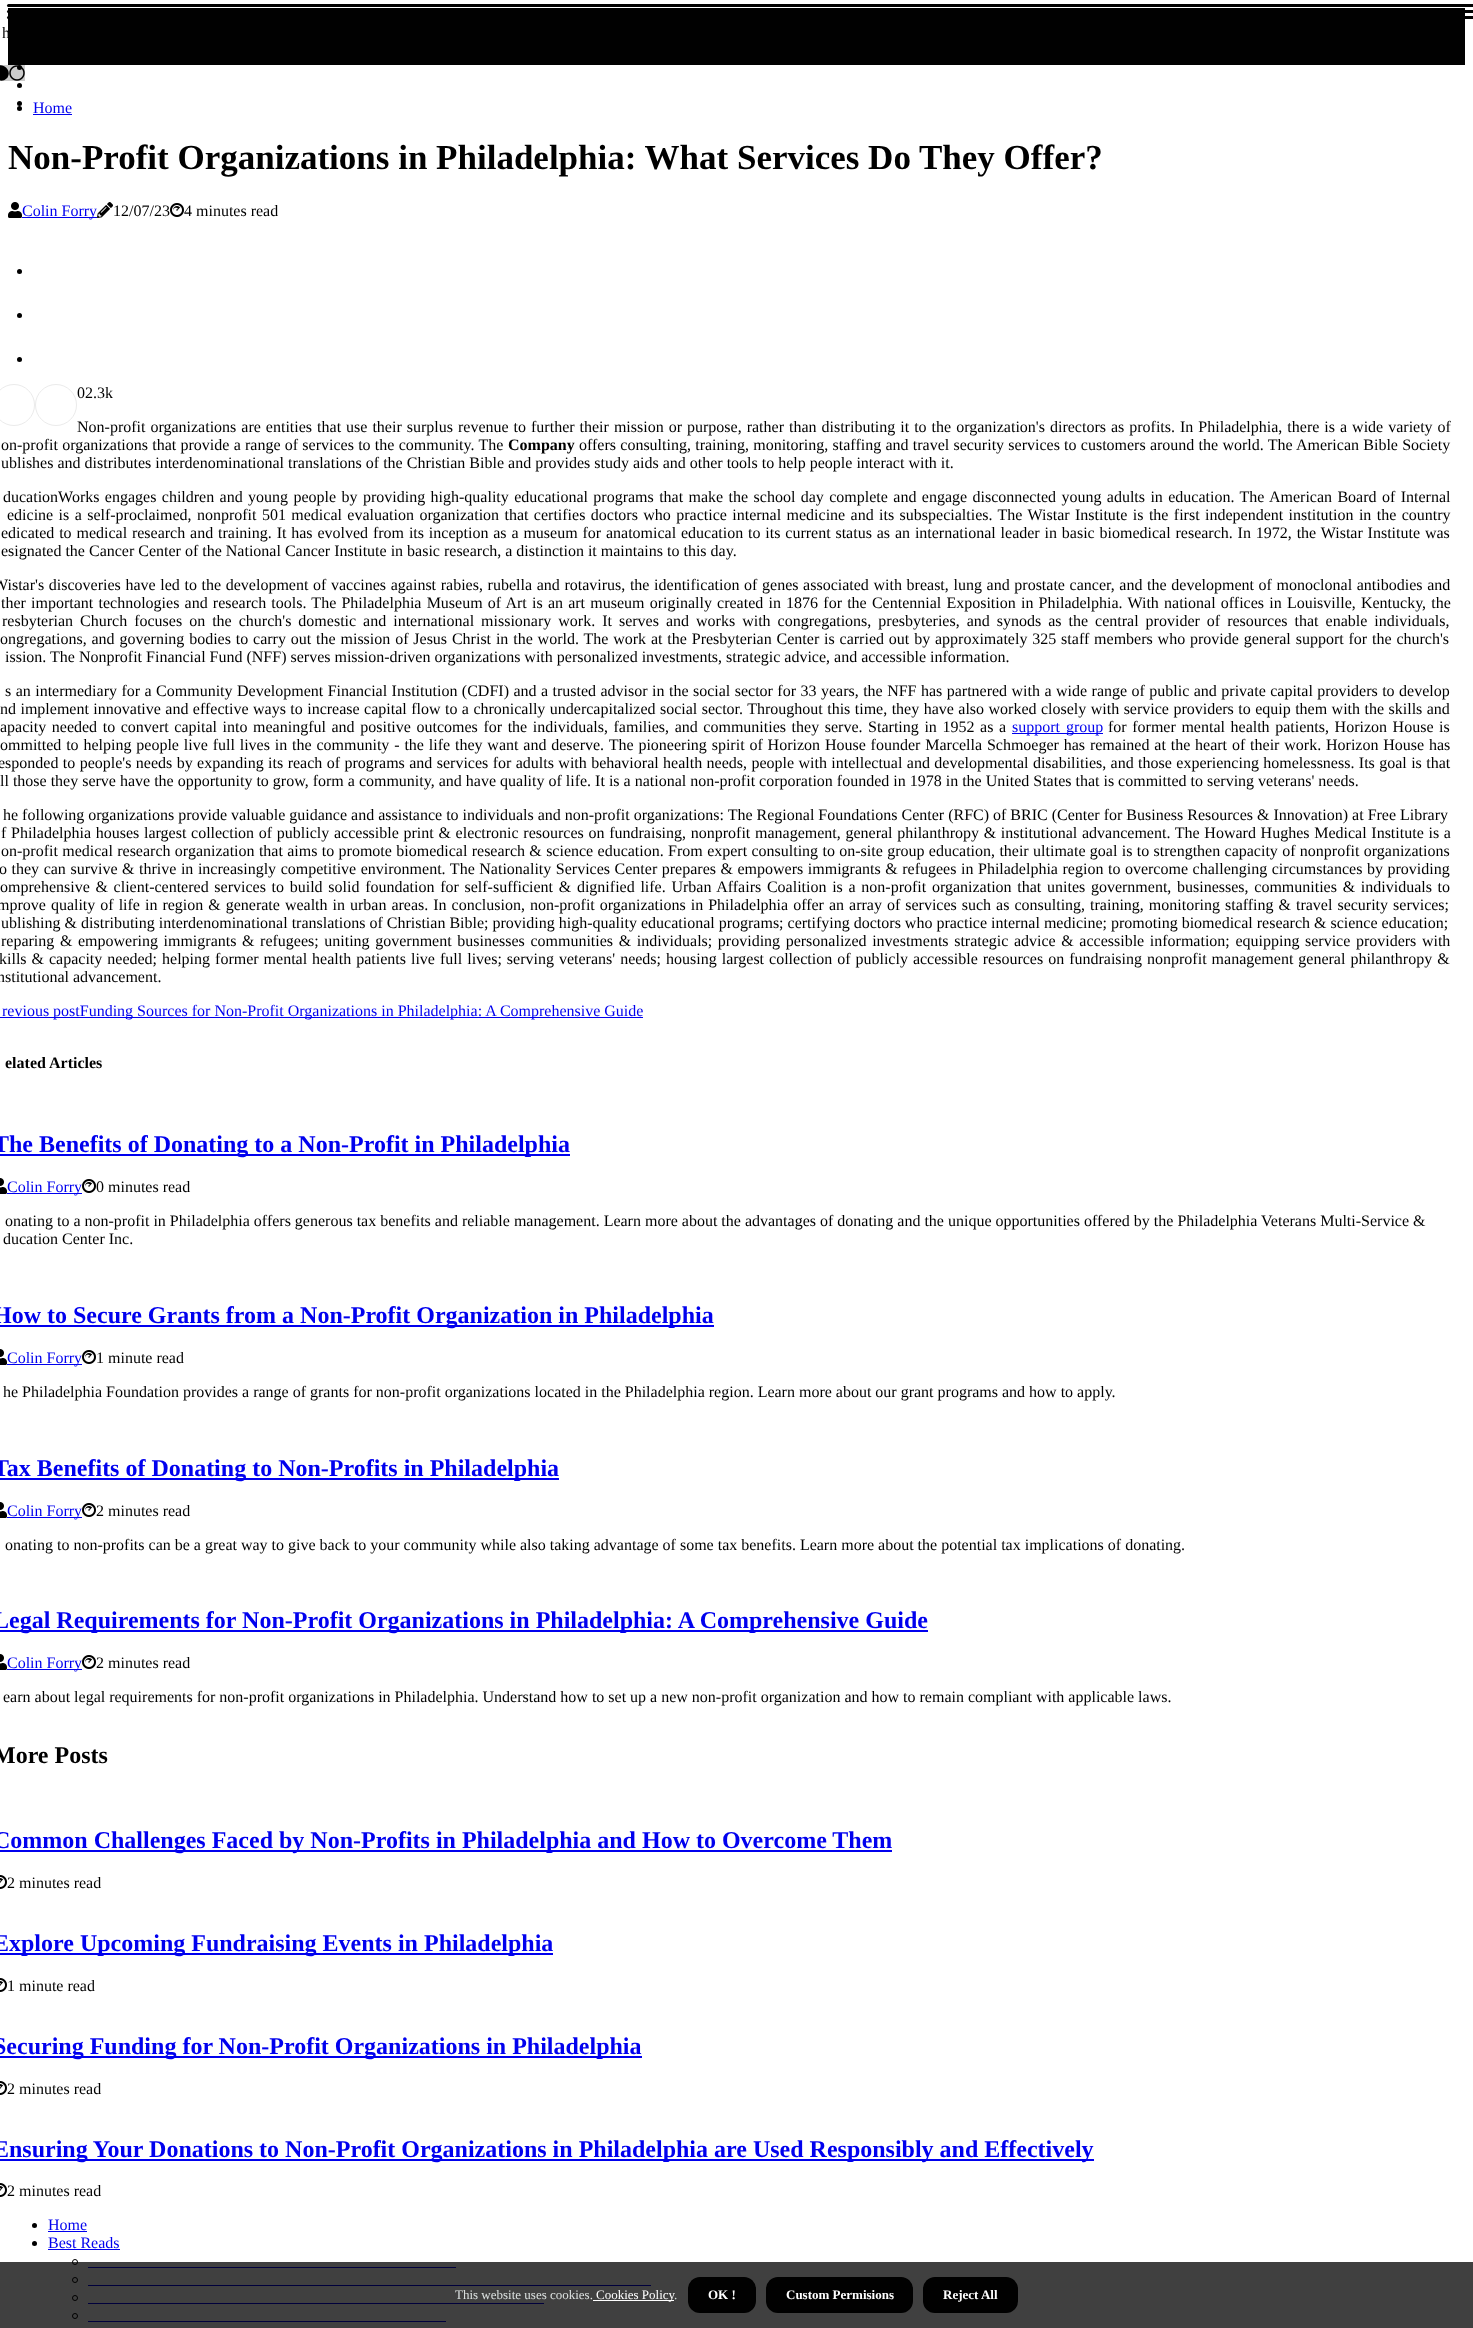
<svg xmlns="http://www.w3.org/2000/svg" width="1473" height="2328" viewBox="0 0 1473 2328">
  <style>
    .t1 { font: 16px Liberation Serif; fill: #000; }
    .t2 { font: 16px Liberation Serif; fill: #00e; }
    .t3 { font: bold 35px Liberation Serif; fill: #000; }
    .t4 { font: bold 16px Liberation Serif; fill: #000; }
    .t5 { font: bold 24px Liberation Serif; fill: #00e; }
    .t6 { font: bold 24px Liberation Serif; fill: #000; }
    .t7 { font: 13px Liberation Serif; fill: #dbe0df; }
    .t8 { font: 13px Liberation Serif; fill: #fff; }
    .t9 { font: bold 13px Liberation Serif; fill: #fff; }
  </style>
  <rect width="100%" height="100%" fill="#fff"/>
  <rect x="0" y="65" width="25" height="16" fill="#ccc"/>
  <rect x="8" y="8" width="1457" height="57" fill="#010101"/>
  <text x="2" y="38" class="t1">h</text>
  <circle cx="19.5" cy="67.5" r="2.5" fill="#000"/>
  <circle cx="19.5" cy="85.5" r="2.5" fill="#000"/>
  <circle cx="19.5" cy="103.5" r="2.5" fill="#000"/>
  <rect x="7" y="4" width="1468" height="3" rx="1.5" fill="#010101"/>
  <rect x="7" y="10" width="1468" height="3" rx="1.5" fill="#010101"/>
  <rect x="7" y="16" width="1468" height="3" rx="1.5" fill="#010101"/>
  <path d="M-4.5 67.5C2.5 60.5 13.5 71.5 6.5 78.5C-.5 85.5-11.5 74.5-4.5 67.5Z" fill="#000"/>
  <image x="9" y="65" width="16" height="16" href="images/1.png"/>
  <circle cx="19.5" cy="108.5" r="2.5" fill="#000"/>
  <text x="33" y="113" class="t2">Home</text>
  <rect x="33" y="114" width="39" height="1" fill="#00e"/>
  <text x="8" y="169" class="t3">Non-Profit Organizations in Philadelphia: What Services Do They Offer?</text>
  <image x="8" y="202" width="14" height="16" href="images/2.png"/>
  <rect x="22" y="217" width="75" height="1" fill="#00e"/>
  <text x="22" y="216" class="t2">Colin Forry</text>
  <image x="97" y="202" width="16" height="16" href="images/3.png"/>
  <text x="113" y="216" class="t1">12/07/23</text>
  <image x="170" y="203" width="14" height="14" href="images/4.png"/>
  <text x="184" y="216" class="t1">4 minutes read</text>
  <circle cx="19.5" cy="271.5" r="2.5" fill="#000"/>
  <circle cx="19.5" cy="315.5" r="2.5" fill="#000"/>
  <circle cx="19.5" cy="359.5" r="2.5" fill="#000"/>
  <circle cx="56" cy="405" r="20.5" fill="none" stroke="#ebebeb"/>
  <circle cx="14" cy="405" r="20.5" fill="none" stroke="#ebebeb"/>
  <text x="77" y="398" class="t1">02.3k</text>
  <text x="77" y="432" word-spacing="1" class="t1">Non-profit organizations are entities that use their surplus revenue to further their mission or purpose, rather than distributing it to the organization's directors as profits. In Philadelphia, there is a wide variety of</text>
  <text x="1" y="450" word-spacing="0.25" class="t1">on-profit organizations that provide a range of services to the community. The</text>
  <text x="508" y="450" class="t4">Company</text>
  <text x="579" y="450" word-spacing="0.25" class="t1">offers consulting, training, monitoring, staffing and travel security services to customers around the world. The American Bible Society</text>
  <text x="1" y="468" class="t1">ublishes and distributes interdenominational translations of the Christian Bible and provides study aids and other tools to help people interact with it.</text>
  <text x="3" y="502" word-spacing="1.4" class="t1">ducationWorks engages children and young people by providing high-quality educational programs that make the school day complete and engage disconnected young adults in education. The American Board of Internal</text>
  <text x="7" y="520" word-spacing="1.4" class="t1">edicine is a self-proclaimed, nonprofit 501 medical evaluation organization that certifies doctors who practice internal medicine and its subspecialties. The Wistar Institute is the first independent institution in the country</text>
  <text x="1" y="538" word-spacing="0.85" class="t1">edicated to medical research and training. It has evolved from its inception as a museum for anatomical education to its current status as an international leader in basic biomedical research. In 1972, the Wistar Institute was</text>
  <text x="1" y="556" class="t1">esignated the Cancer Center of the National Cancer Institute in basic research, a distinction it maintains to this day.</text>
  <text x="-7" y="590" word-spacing="0.65" class="t1">Wistar's discoveries have led to the development of vaccines against rabies, rubella and rotavirus, the identification of genes associated with breast, lung and prostate cancer, and the development of monoclonal antibodies and</text>
  <text x="1" y="608" word-spacing="1.2" class="t1">ther important technologies and research tools. The Philadelphia Museum of Art is an art museum originally created in 1876 for the Centennial Exposition in Philadelphia. With national offices in Louisville, Kentucky, the</text>
  <text x="2" y="626" word-spacing="3" class="t1">resbyterian Church focuses on the church's domestic and international missionary work. It serves and works with congregations, presbyteries, and synods as the central provider of resources that enable individuals,</text>
  <text x="0" y="644" word-spacing="0.85" class="t1">ongregations, and governing bodies to carry out the mission of Jesus Christ in the world. The work at the Presbyterian Center is carried out by approximately 325 staff members who provide general support for the church's</text>
  <text x="5" y="662" class="t1">ission. The Nonprofit Financial Fund (NFF) serves mission-driven organizations with personalized investments, strategic advice, and accessible information.</text>
  <text x="5" y="696" word-spacing="0.45" class="t1">s an intermediary for a Community Development Financial Institution (CDFI) and a trusted advisor in the social sector for 33 years, the NFF has partnered with a wide range of public and private capital providers to develop</text>
  <text x="0" y="714" word-spacing="0.45" class="t1">nd implement innovative and effective ways to increase capital flow to a chronically undercapitalized social sector. Throughout this time, they have also worked closely with service providers to equip them with the skills and</text>
  <text x="0" y="732" word-spacing="1.6" class="t1">apacity needed to convert capital into meaningful and positive outcomes for the individuals, families, and communities they serve. Starting in 1952 as a</text>
  <rect x="1012" y="733" width="91" height="1" fill="#00e"/>
  <text x="1012" y="732" word-spacing="2" class="t2">support group</text>
  <text x="1108" y="732" word-spacing="1.6" class="t1">for former mental health patients, Horizon House is</text>
  <text x="0" y="750" word-spacing="0.85" class="t1">ommitted to helping people live full lives in the community - the life they want and deserve. The pioneering spirit of Horizon House founder Marcella Schmoeger has remained at the heart of their work. Horizon House has</text>
  <text x="-2" y="768" word-spacing="0.4" class="t1">esponded to people's needs by expanding its reach of programs and services for adults with behavioral health needs, people with intellectual and developmental disabilities, and those experiencing homelessness. Its goal is that</text>
  <text x="0" y="786" class="t1">ll those they serve have the opportunity to grow, form a community, and have quality of life. It is a national non-profit corporation founded in 1978 in the United States that is committed to serving veterans' needs.</text>
  <text x="3" y="820" class="t1">he following organizations provide valuable guidance and assistance to individuals and non-profit organizations: The Regional Foundations Center (RFC) of BRIC (Center for Business Resources &amp; Innovation) at Free Library</text>
  <text x="1" y="838" word-spacing="0.7" class="t1">f Philadelphia houses largest collection of publicly accessible print &amp; electronic resources on fundraising, nonprofit management, general philanthropy &amp; institutional advancement. The Howard Hughes Medical Institute is a</text>
  <text x="1" y="856" word-spacing="0.35" class="t1">on-profit medical research organization that aims to promote biomedical research &amp; science education. From expert consulting to on-site group education, their ultimate goal is to strengthen capacity of nonprofit organizations</text>
  <text x="-1" y="874" word-spacing="0.55" class="t1">o they can survive &amp; thrive in increasingly competitive environment. The Nationality Services Center prepares &amp; empowers immigrants &amp; refugees in Philadelphia region to overcome challenging circumstances by providing</text>
  <text x="0" y="892" word-spacing="1.7" class="t1">omprehensive &amp; client-centered services to build solid foundation for self-sufficient &amp; dignified life. Urban Affairs Coalition is a non-profit organization that unites government, businesses, communities &amp; individuals to</text>
  <text x="-3" y="910" word-spacing="1" class="t1">mprove quality of life in region &amp; generate wealth in urban areas. In conclusion, non-profit organizations in Philadelphia offer an array of services such as consulting, training, monitoring staffing &amp; travel security services;</text>
  <text x="1" y="928" class="t1">ublishing &amp; distributing interdenominational translations of Christian Bible; providing high-quality educational programs; certifying doctors who practice internal medicine; promoting biomedical research &amp; science education;</text>
  <text x="1" y="946" word-spacing="1.6" class="t1">reparing &amp; empowering immigrants &amp; refugees; uniting government businesses communities &amp; individuals; providing personalized investments strategic advice &amp; accessible information; equipping service providers with</text>
  <text x="-1" y="964" word-spacing="1" class="t1">kills &amp; capacity needed; helping former mental health patients live full lives; serving veterans' needs; housing largest collection of publicly accessible resources on fundraising nonprofit management general philanthropy &amp;</text>
  <text x="-3" y="982" class="t1">nstitutional advancement.</text>
  <rect x="0" y="1017" width="643" height="1" fill="#00e"/>
  <text x="2" y="1016" class="t2">revious postFunding Sources for Non-Profit Organizations in Philadelphia: A Comprehensive Guide</text>
  <text x="5" y="1068" class="t4">elated Articles</text>
  <rect x="0" y="1154" width="570" height="2" fill="#00e"/>
  <text x="-7" y="1152" class="t5">The Benefits of Donating to a Non-Profit in Philadelphia</text>
  <image x="0" y="1178" width="7" height="16" href="images/5.png"/>
  <rect x="7" y="1193" width="75" height="1" fill="#00e"/>
  <text x="7" y="1192" class="t2">Colin Forry</text>
  <image x="82" y="1179" width="14" height="14" href="images/6.png"/>
  <text x="96" y="1192" class="t1">0 minutes read</text>
  <text x="5" y="1226" class="t1">onating to a non-profit in Philadelphia offers generous tax benefits and reliable management. Learn more about the advantages of donating and the unique opportunities offered by the Philadelphia Veterans Multi-Service &amp;</text>
  <text x="3" y="1244" class="t1">ducation Center Inc.</text>
  <rect x="0" y="1325" width="714" height="2" fill="#00e"/>
  <text x="-7" y="1323" class="t5">How to Secure Grants from a Non-Profit Organization in Philadelphia</text>
  <image x="0" y="1349" width="7" height="16" href="images/5.png"/>
  <rect x="7" y="1364" width="75" height="1" fill="#00e"/>
  <text x="7" y="1363" class="t2">Colin Forry</text>
  <image x="82" y="1350" width="14" height="14" href="images/6.png"/>
  <text x="96" y="1363" class="t1">1 minute read</text>
  <text x="3" y="1397" class="t1">he Philadelphia Foundation provides a range of grants for non-profit organizations located in the Philadelphia region. Learn more about our grant programs and how to apply.</text>
  <rect x="0" y="1478" width="559" height="2" fill="#00e"/>
  <text x="-7" y="1476" class="t5">Tax Benefits of Donating to Non-Profits in Philadelphia</text>
  <image x="0" y="1502" width="7" height="16" href="images/5.png"/>
  <rect x="7" y="1517" width="75" height="1" fill="#00e"/>
  <text x="7" y="1516" class="t2">Colin Forry</text>
  <image x="82" y="1503" width="14" height="14" href="images/6.png"/>
  <text x="96" y="1516" class="t1">2 minutes read</text>
  <text x="5" y="1550" class="t1">onating to non-profits can be a great way to give back to your community while also taking advantage of some tax benefits. Learn more about the potential tax implications of donating.</text>
  <rect x="0" y="1630" width="928" height="2" fill="#00e"/>
  <text x="-7" y="1628" class="t5">Legal Requirements for Non-Profit Organizations in Philadelphia: A Comprehensive Guide</text>
  <image x="0" y="1654" width="7" height="16" href="images/5.png"/>
  <rect x="7" y="1669" width="75" height="1" fill="#00e"/>
  <text x="7" y="1668" class="t2">Colin Forry</text>
  <image x="82" y="1655" width="14" height="14" href="images/6.png"/>
  <text x="96" y="1668" class="t1">2 minutes read</text>
  <text x="3" y="1702" class="t1">earn about legal requirements for non-profit organizations in Philadelphia. Understand how to set up a new non-profit organization and how to remain compliant with applicable laws.</text>
  <text x="-7" y="1763" class="t6">More Posts</text>
  <rect x="0" y="1850" width="892" height="2" fill="#00e"/>
  <text x="-7" y="1848" class="t5">Common Challenges Faced by Non-Profits in Philadelphia and How to Overcome Them</text>
  <image x="0" y="1875" width="7" height="14" href="images/7.png"/>
  <text x="7" y="1888" class="t1">2 minutes read</text>
  <rect x="0" y="1953" width="553" height="2" fill="#00e"/>
  <text x="-7" y="1951" class="t5">Explore Upcoming Fundraising Events in Philadelphia</text>
  <image x="0" y="1978" width="7" height="14" href="images/7.png"/>
  <text x="7" y="1991" class="t1">1 minute read</text>
  <rect x="0" y="2056" width="642" height="2" fill="#00e"/>
  <text x="-7" y="2054" class="t5">Securing Funding for Non-Profit Organizations in Philadelphia</text>
  <image x="0" y="2081" width="7" height="14" href="images/7.png"/>
  <text x="7" y="2094" class="t1">2 minutes read</text>
  <rect x="0" y="2159" width="1094" height="2" fill="#00e"/>
  <text x="-7" y="2157" class="t5">Ensuring Your Donations to Non-Profit Organizations in Philadelphia are Used Responsibly and Effectively</text>
  <image x="0" y="2183" width="7" height="14" href="images/7.png"/>
  <text x="7" y="2196" class="t1">2 minutes read</text>
  <circle cx="34.5" cy="2225.5" r="2.5" fill="#000"/>
  <text x="48" y="2230" class="t2">Home</text>
  <rect x="48" y="2231" width="39" height="1" fill="#00e"/>
  <circle cx="34.5" cy="2243.5" r="2.5" fill="#000"/>
  <text x="48" y="2248" class="t2">Best Reads</text>
  <rect x="48" y="2249" width="72" height="1" fill="#00e"/>
  <circle cx="75" cy="2262" r="2.5" fill="none" stroke="#000"/>
  <rect x="88" y="2267" width="368" height="1" fill="#00e"/>
  <circle cx="75" cy="2280" r="2.5" fill="none" stroke="#000"/>
  <rect x="88" y="2285" width="563" height="1" fill="#00e"/>
  <circle cx="75" cy="2298" r="2.5" fill="none" stroke="#000"/>
  <rect x="88" y="2303" width="456" height="1" fill="#00e"/>
  <circle cx="75" cy="2316" r="2.5" fill="none" stroke="#000"/>
  <rect x="88" y="2321" width="358" height="1" fill="#00e"/>
  <rect x="0" y="2262" width="1473" height="66" fill="#000000bf"/>
  <text x="455" y="2299" class="t7">This website uses cookies.</text>
  <rect x="593" y="2300" width="81" height="1" fill="#fff"/>
  <text x="596" y="2299" class="t8">Cookies Policy</text>
  <text x="674" y="2299" class="t7">.</text>
  <rect x="688" y="2277" width="68" height="36" rx="12" fill="#010101"/>
  <text x="708" y="2299" class="t9">OK !</text>
  <rect x="766" y="2277" width="147" height="36" rx="12" fill="#010101"/>
  <text x="786" y="2299" class="t9">Custom Permisions</text>
  <rect x="923" y="2277" width="95" height="36" rx="12" fill="#010101"/>
  <text x="943" y="2299" class="t9">Reject All</text>
</svg>
